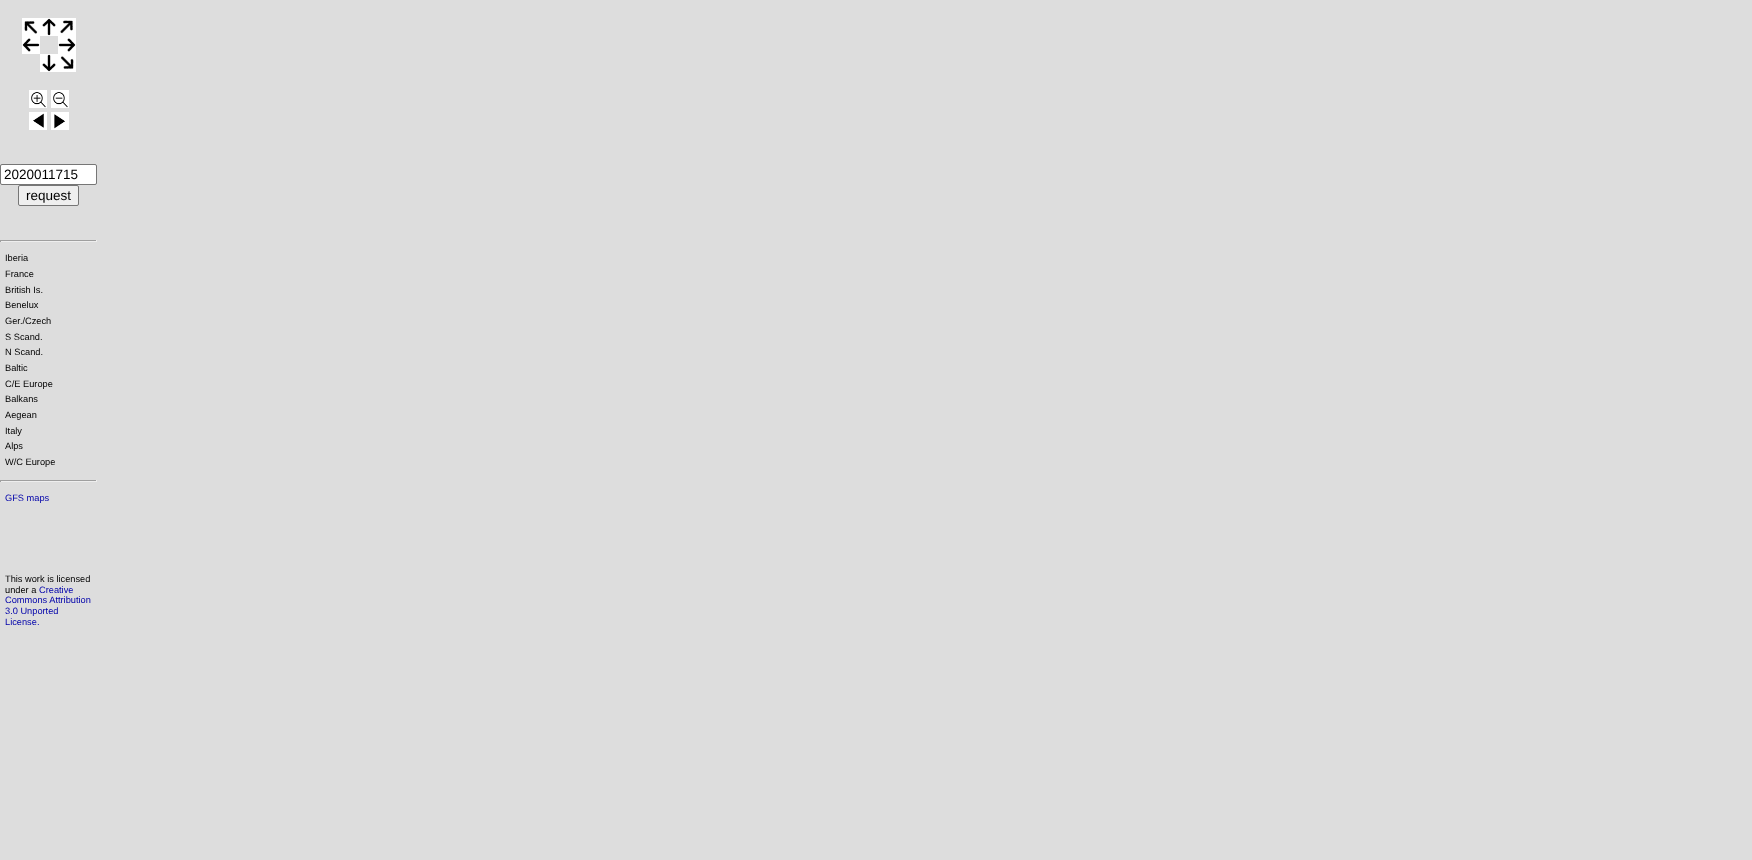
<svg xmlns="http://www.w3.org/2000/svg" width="1752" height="860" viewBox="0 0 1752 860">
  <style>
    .t1 { font: 13.5px Liberation Sans; fill: #000; }
    .t2 { font: 9.25px Liberation Sans; fill: #000; }
    .t3 { font: 9.25px Liberation Sans; fill: #00a; }
  </style>
  <rect width="100%" height="100%" fill="#ddd"/>
  <image x="22" y="18" width="18" height="18" href="images/1.png"/>
  <image x="40" y="18" width="18" height="18" href="images/2.png"/>
  <image x="58" y="18" width="18" height="18" href="images/3.png"/>
  <image x="22" y="36" width="18" height="18" href="images/4.png"/>
  <image x="58" y="36" width="18" height="18" href="images/5.png"/>
  <image x="40" y="54" width="18" height="18" href="images/6.png"/>
  <image x="58" y="54" width="18" height="18" href="images/7.png"/>
  <image x="29" y="90" width="18" height="18" href="images/8.png"/>
  <image x="51" y="90" width="18" height="18" href="images/9.png"/>
  <image x="29" y="112" width="18" height="18" href="images/10.png"/>
  <image x="51" y="112" width="18" height="18" href="images/11.png"/>
  <rect x="0.5" y="164.5" width="96" height="20" rx="1.5" fill="#fff" stroke="#767676"/>
  <text x="4" y="179" class="t1">2020011715</text>
  <rect x="18.5" y="185.5" width="60" height="20" rx="1.5" fill="#efefef" stroke="#767676"/>
  <text x="26" y="200" class="t1">request</text>
  <rect x="0" y="240" width="97" height="1" fill="#9f9f9f"/>
  <rect x="96" y="240" width="1" height="2" fill="#eee"/>
  <rect x="0" y="241" width="97" height="1" fill="#eee"/>
  <rect x="0" y="240" width="1" height="2" fill="#9f9f9f"/>
  <text x="5" y="261" class="t2">Iberia</text>
  <text x="5" y="277" class="t2">France</text>
  <text x="5" y="293" class="t2">British Is.</text>
  <text x="5" y="308" class="t2">Benelux</text>
  <text x="5" y="324" class="t2">Ger./Czech</text>
  <text x="5" y="340" class="t2">S Scand.</text>
  <text x="5" y="355" class="t2">N Scand.</text>
  <text x="5" y="371" class="t2">Baltic</text>
  <text x="5" y="387" class="t2">C/E Europe</text>
  <text x="5" y="402" class="t2">Balkans</text>
  <text x="5" y="418" class="t2">Aegean</text>
  <text x="5" y="434" class="t2">Italy</text>
  <text x="5" y="449" class="t2">Alps</text>
  <text x="5" y="465" class="t2">W/C Europe</text>
  <rect x="0" y="480" width="97" height="1" fill="#9f9f9f"/>
  <rect x="96" y="480" width="1" height="2" fill="#eee"/>
  <rect x="0" y="481" width="97" height="1" fill="#eee"/>
  <rect x="0" y="480" width="1" height="2" fill="#9f9f9f"/>
  <text x="5" y="501" class="t3">GFS maps</text>
  <text x="5" y="582" class="t2">This work is licensed</text>
  <text x="5" y="593" class="t2">under a</text>
  <text x="39" y="593" class="t3">Creative</text>
  <text x="5" y="603" class="t3">Commons Attribution</text>
  <text x="5" y="614" class="t3">3.0 Unported</text>
  <text x="5" y="625" class="t3">License.</text>
</svg>
